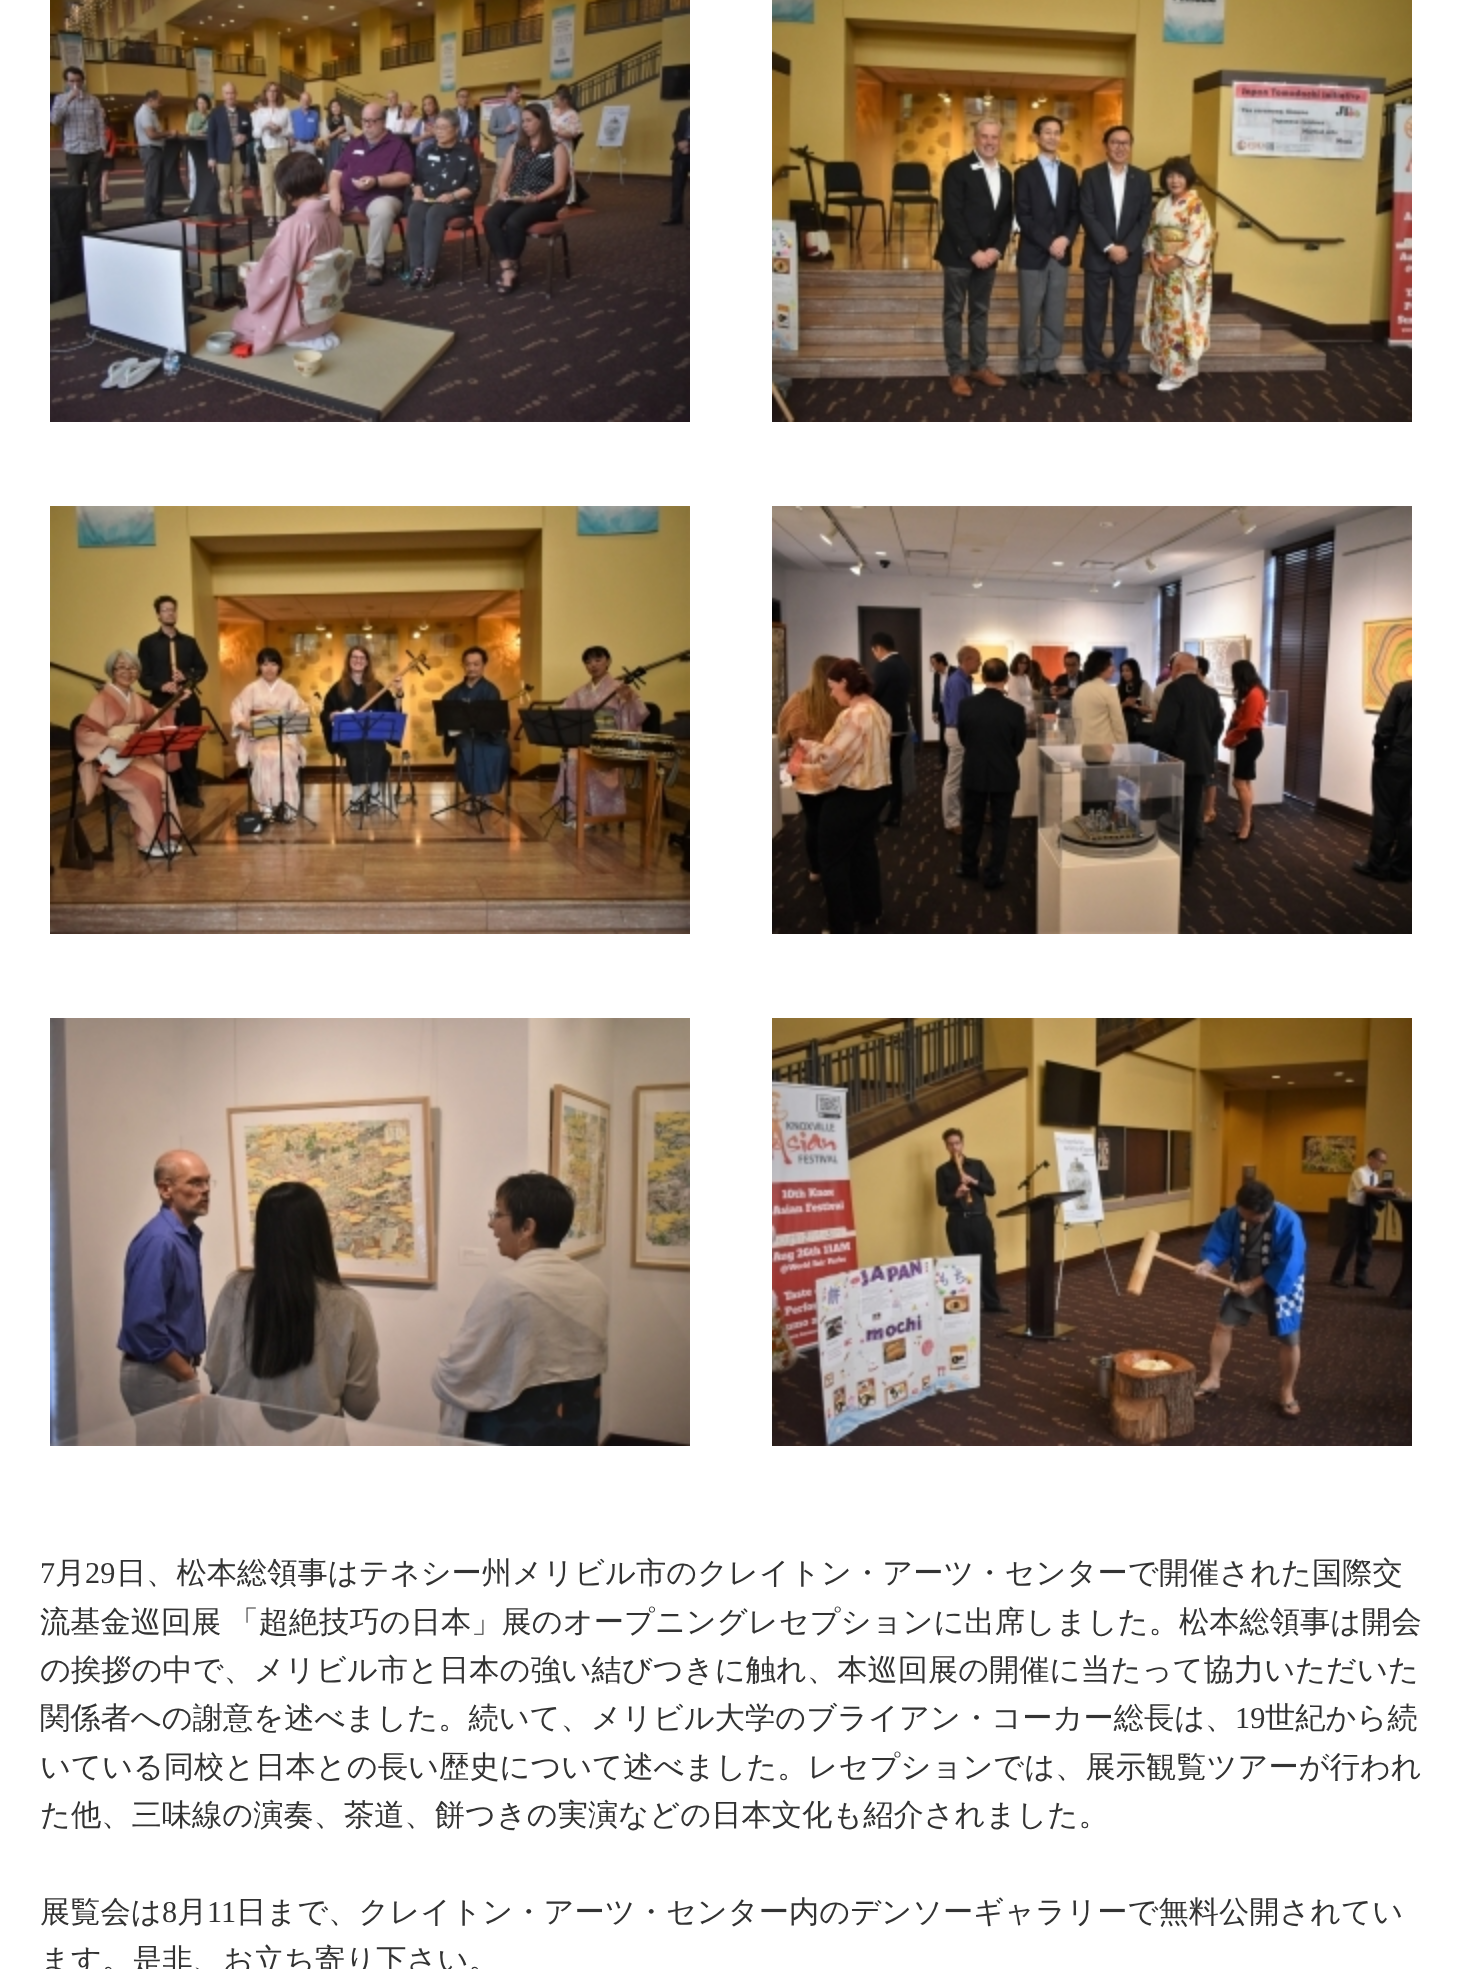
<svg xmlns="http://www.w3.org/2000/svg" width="1462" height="1969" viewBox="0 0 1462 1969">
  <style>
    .t1 { font: 30.25px Liberation Serif; fill: #333; }
    .t2 { font: 500 30.25px WenQuanYi Zen Hei; fill: #333; }
  </style>
  <rect width="100%" height="100%" fill="#fff"/>
  <image x="50" y="0" width="640" height="422" href="images/1.png"/>
  <image x="772" y="0" width="640" height="422" href="images/2.png"/>
  <image x="50" y="506" width="640" height="428" href="images/3.png"/>
  <image x="772" y="506" width="640" height="428" href="images/4.png"/>
  <image x="50" y="1018" width="640" height="428" href="images/5.png"/>
  <image x="772" y="1018" width="640" height="428" href="images/6.png"/>
  <text x="40" y="1583" class="t1">7</text>
  <text x="55" y="1583" class="t2">月</text>
  <text x="85" y="1583" class="t1">29</text>
  <text x="116" y="1583" class="t2">日、松本総領事はテネシー州メリビル市のクレイトン・アーツ・センターで開催された国際交</text>
  <text x="40" y="1632" word-spacing="-2" class="t2">流基金巡回展 「超絶技巧の日本」展のオープニングレセプションに出席しました。松本総領事は開会</text>
  <text x="40" y="1680" class="t2">の挨拶の中で、メリビル市と日本の強い結びつきに触れ、本巡回展の開催に当たって協力いただいた</text>
  <text x="40" y="1728" class="t2">関係者への謝意を述べました。続いて、メリビル大学のブライアン・コーカー総長は、</text>
  <text x="1235" y="1728" class="t1">19</text>
  <text x="1265" y="1728" class="t2">世紀から続</text>
  <text x="40" y="1777" class="t2">いている同校と日本との長い歴史について述べました。レセプションでは、展示観覧ツアーが行われ</text>
  <text x="40" y="1825" class="t2">た他、三味線の演奏、茶道、餅つきの実演などの日本文化も紹介されました。</text>
  <text x="40" y="1922" class="t2">展覧会は</text>
  <text x="162" y="1922" class="t1">8</text>
  <text x="177" y="1922" class="t2">月</text>
  <text x="207" y="1922" class="t1">11</text>
  <text x="236" y="1922" class="t2">日まで、クレイトン・アーツ・センター内のデンソーギャラリーで無料公開されてい</text>
  <text x="40" y="1970" class="t2">ます。是非、お立ち寄り下さい。</text>
</svg>
